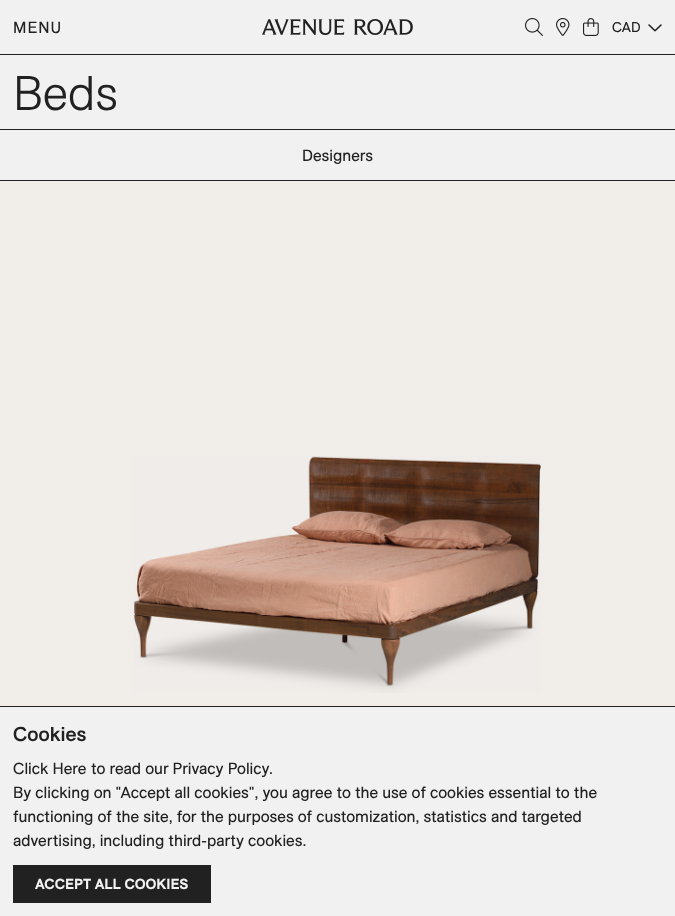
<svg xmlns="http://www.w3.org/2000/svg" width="675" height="916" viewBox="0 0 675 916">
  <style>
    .t1 { font: 16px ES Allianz; letter-spacing: 1px; fill: #212121; }
    .t2 { font: 14px ES Allianz; fill: #212121; }
    .t3 { font: 300 48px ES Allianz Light; fill: #212121; }
    .t4 { font: 16px ES Allianz; fill: #212121; }
    .t5 { font: 500 20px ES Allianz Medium; fill: #212121; }
    .t6 { font: bold 14px ES Allianz Medium; letter-spacing: 0.3px; fill: #f1f1f1; }
  </style>
  <rect width="100%" height="100%" fill="#f1f1f1"/>
  <rect x="0" y="54" width="675" height="1" fill="#212121"/>
  <text x="13" y="33" class="t1">MENU</text>
  <image x="262" y="19" width="151" height="16" href="images/1.png"/>
  <image x="525" y="18" width="18" height="18" href="images/2.png"/>
  <image x="556" y="18" width="14" height="18" href="images/3.png"/>
  <image x="583" y="18" width="16" height="18" href="images/4.png"/>
  <text x="612" y="32" class="t2">CAD</text>
  <image x="648" y="24" width="14" height="8" href="images/5.png"/>
  <rect x="0" y="129" width="675" height="1" fill="#212121"/>
  <text x="13" y="110" class="t3">Beds</text>
  <rect x="0" y="180" width="675" height="1" fill="#212121"/>
  <text x="302" y="161" class="t4">Designers</text>
  <rect x="0" y="181" width="675" height="525" fill="#f1ede9"/>
  <image x="133" y="456" width="408" height="237" href="images/6.png"/>
  <rect x="0" y="706" width="675" height="1" fill="#212121"/>
  <text x="13" y="741" class="t5">Cookies</text>
  <text x="13" y="774" class="t4">Click Here</text>
  <text x="91" y="774" class="t4">to read our Privacy Policy.</text>
  <text x="13" y="798" class="t4">By clicking on "Accept all cookies", you agree to the use of cookies essential to the</text>
  <text x="13" y="822" class="t4">functioning of the site, for the purposes of customization, statistics and targeted</text>
  <text x="13" y="846" class="t4">advertising, including third-party cookies.</text>
  <rect x="13" y="865" width="198" height="38" fill="#212121"/>
  <text x="35" y="889" class="t6">ACCEPT ALL COOKIES</text>
</svg>
